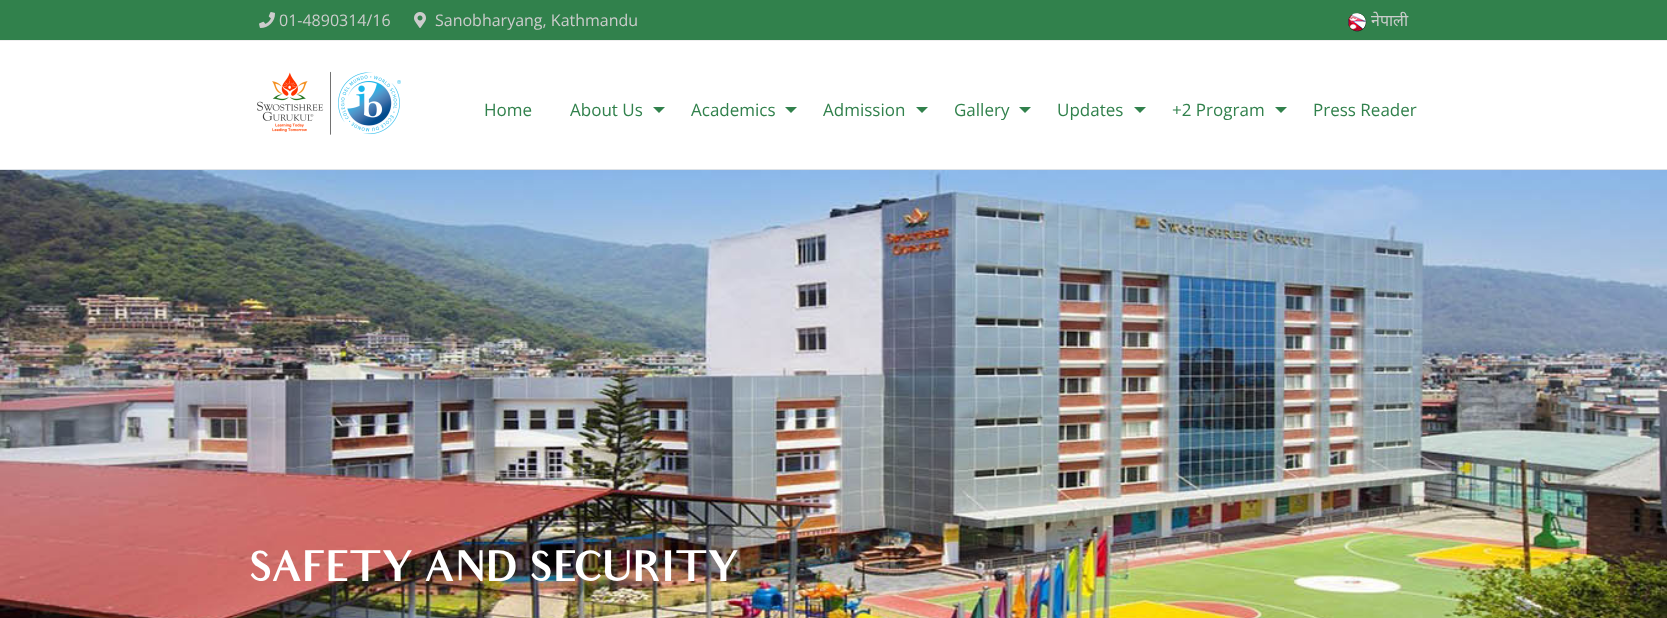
<svg xmlns="http://www.w3.org/2000/svg" width="1667" height="618" viewBox="0 0 1667 618">
  <style>
    .t1 { font: 16px Open Sans; fill: #ccc; }
    .t2 { font: 16px Noto Sans; fill: #ccc; }
    .t3 { font: 17px Open Sans; fill: #31814c; }
    .t4 { font: bold 40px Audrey; fill: #fff; }
  </style>
  <rect width="100%" height="100%" fill="#fff"/>
  <rect x="0" y="0" width="1667" height="40" fill="#31814c"/>
  <rect x="0" y="40" width="1667" height="1" fill="#eee"/>
  <image x="259" y="12" width="16" height="16" href="images/1.png"/>
  <text x="279" y="26" class="t1">01-4890314/16</text>
  <image x="414" y="12" width="12" height="16" href="images/2.png"/>
  <text x="435" y="26" class="t1">Sanobharyang, Kathmandu</text>
  <image x="1348" y="13" width="19" height="19" href="images/3.png"/>
  <text x="1371" y="26" class="t2">नेपाली</text>
  <rect x="0" y="169" width="1667" height="1" fill="#dee2e6"/>
  <image x="257" y="71" width="144" height="64" href="images/4.png"/>
  <text x="484" y="116" class="t3">Home</text>
  <text x="570" y="116" class="t3">About Us</text>
  <path d="M653 107H665L659 113Z" fill="#31814c"/>
  <text x="691" y="116" class="t3">Academics</text>
  <path d="M785 107H797L791 113Z" fill="#31814c"/>
  <text x="823" y="116" class="t3">Admission</text>
  <path d="M916 107H928L922 113Z" fill="#31814c"/>
  <text x="954" y="116" class="t3">Gallery</text>
  <path d="M1019 107H1031L1025 113Z" fill="#31814c"/>
  <text x="1057" y="116" class="t3">Updates</text>
  <path d="M1134 107H1146L1140 113Z" fill="#31814c"/>
  <text x="1172" y="116" class="t3">+2 Program</text>
  <path d="M1275 107H1287L1281 113Z" fill="#31814c"/>
  <text x="1313" y="116" class="t3">Press Reader</text>
  <image x="0" y="170" width="1667" height="448" href="images/5.png"/>
  <text x="249" y="580" class="t4">SAFETY AND SECURITY</text>
</svg>
